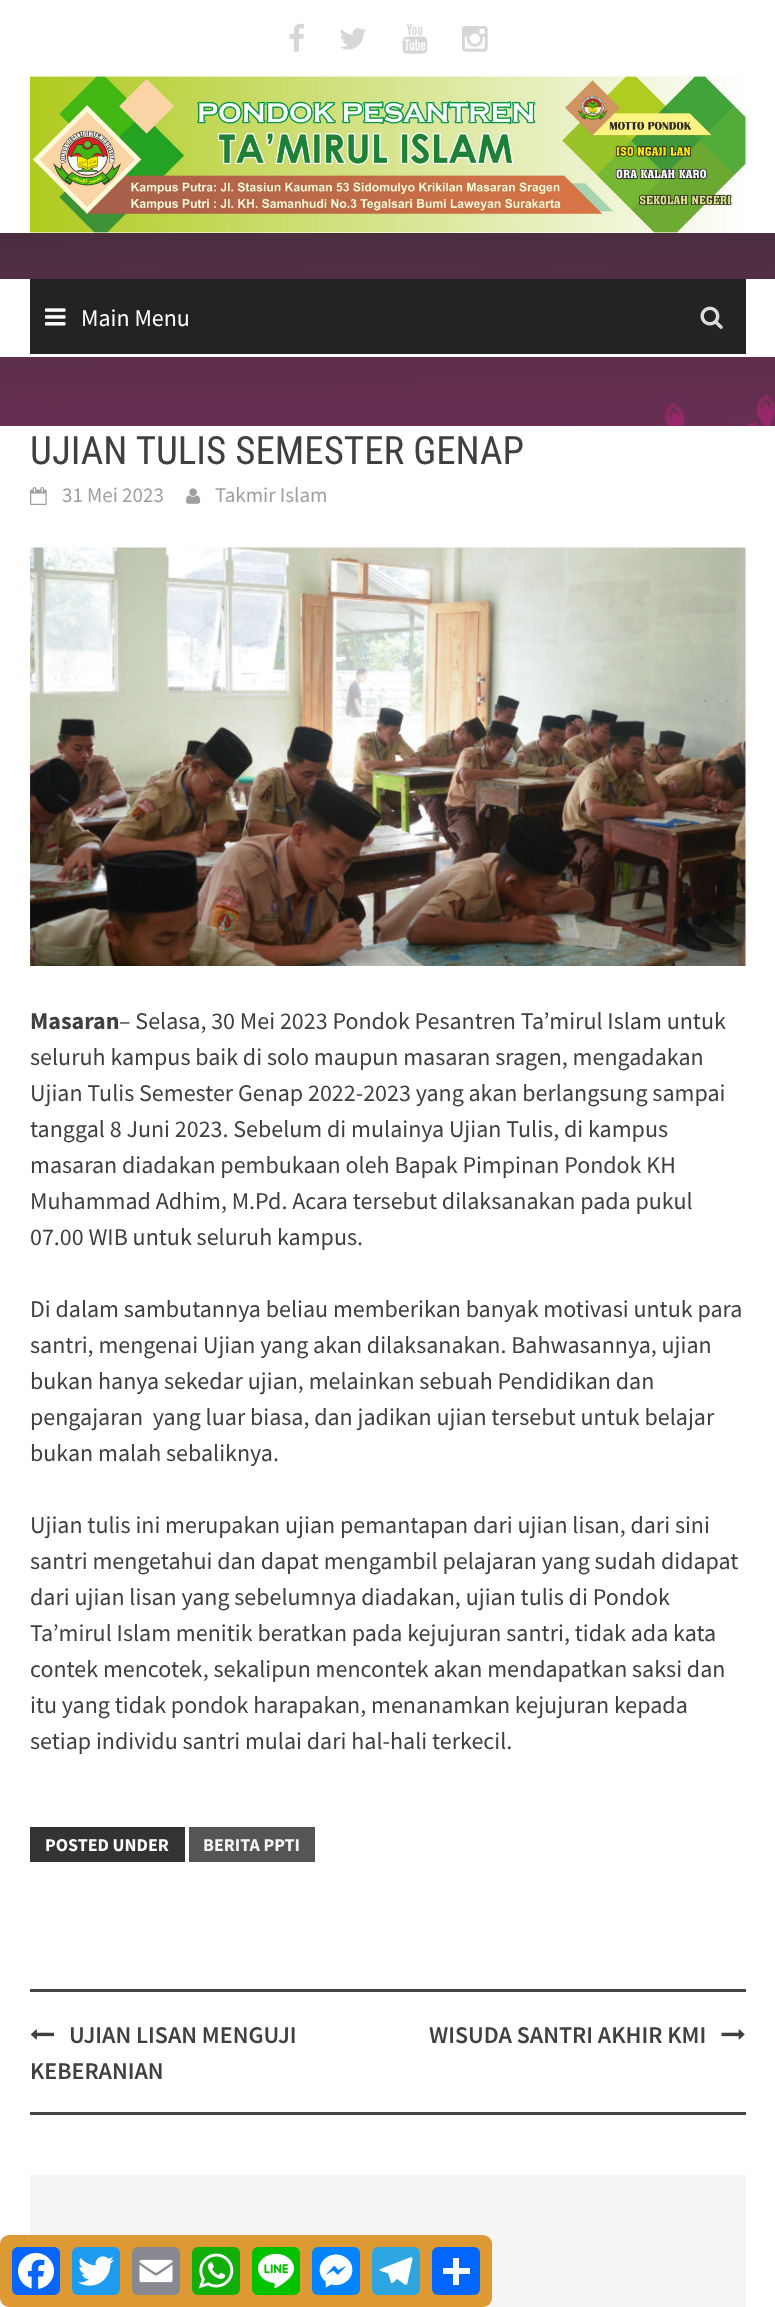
<svg xmlns="http://www.w3.org/2000/svg" width="775" height="2307" viewBox="0 0 775 2307">
  <style>
    .t1 { font: 24px Source Sans Pro; fill: #fff; }
    .t2 { font: 39px Roboto Condensed; fill: #404040; }
    .t3 { font: 21px Source Sans Pro; fill: #9f9f9f; }
    .t4 { font: bold 24px Source Sans Pro; fill: #404040; }
    .t5 { font: 24px Source Sans Pro; fill: #404040; }
    .t6 { font: bold 18px Source Sans Pro; fill: #fff; }
    .t7 { font: bold 18px Source Sans Pro; fill: #f5f5f5; }
    .t8 { font: 600 24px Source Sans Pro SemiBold; fill: #404040; }
  </style>
  <rect width="100%" height="100%" fill="#fff"/>
  <image x="0" y="233" width="775" height="193" href="images/1.png"/>
  <image x="289" y="23" width="15" height="29" href="images/2.png"/>
  <image x="340" y="28" width="26" height="22" href="images/3.png"/>
  <image x="402" y="23" width="26" height="31" href="images/4.png"/>
  <image x="462" y="26" width="26" height="26" href="images/5.png"/>
  <image x="30" y="76" width="716" height="157" href="images/6.png"/>
  <rect x="0" y="279" width="775" height="78" fill="#fff"/>
  <rect x="30" y="279" width="716" height="75" fill="#232323"/>
  <image x="45" y="308" width="21" height="18" href="images/7.png"/>
  <text x="81" y="326" class="t1">Main Menu</text>
  <image x="700" y="306" width="23" height="23" href="images/8.png"/>
  <text x="30" y="464" class="t2">UJIAN TULIS SEMESTER GENAP</text>
  <image x="30" y="487" width="17" height="19" href="images/9.png"/>
  <text x="62" y="502" class="t3">31 Mei 2023</text>
  <image x="186" y="488" width="15" height="16" href="images/10.png"/>
  <text x="215" y="502" class="t3">Takmir Islam</text>
  <image x="30" y="547" width="716" height="419" href="images/11.png"/>
  <text x="30" y="1029" class="t4">Masaran</text>
  <text x="119" y="1029" class="t5">– Selasa, 30 Mei 2023 Pondok Pesantren Ta’mirul Islam untuk</text>
  <text x="30" y="1065" class="t5">seluruh kampus baik di solo maupun masaran sragen, mengadakan</text>
  <text x="30" y="1101" class="t5">Ujian Tulis Semester Genap 2022-2023 yang akan berlangsung sampai</text>
  <text x="30" y="1137" class="t5">tanggal 8 Juni 2023. Sebelum di mulainya Ujian Tulis, di kampus</text>
  <text x="30" y="1173" class="t5">masaran diadakan pembukaan oleh Bapak Pimpinan Pondok KH</text>
  <text x="30" y="1209" class="t5">Muhammad Adhim, M.Pd. Acara tersebut dilaksanakan pada pukul</text>
  <text x="30" y="1245" class="t5">07.00 WIB untuk seluruh kampus.</text>
  <text x="30" y="1317" class="t5">Di dalam sambutannya beliau memberikan banyak motivasi untuk para</text>
  <text x="30" y="1353" class="t5">santri, mengenai Ujian yang akan dilaksanakan. Bahwasannya, ujian</text>
  <text x="30" y="1389" class="t5">bukan hanya sekedar ujian, melainkan sebuah Pendidikan dan</text>
  <text x="30" y="1425" class="t5" xml:space="preserve">pengajaran  yang luar biasa, dan jadikan ujian tersebut untuk belajar</text>
  <text x="30" y="1461" class="t5">bukan malah sebaliknya.</text>
  <text x="30" y="1533" class="t5">Ujian tulis ini merupakan ujian pemantapan dari ujian lisan, dari sini</text>
  <text x="30" y="1569" class="t5">santri mengetahui dan dapat mengambil pelajaran yang sudah didapat</text>
  <text x="30" y="1605" class="t5">dari ujian lisan yang sebelumnya diadakan, ujian tulis di Pondok</text>
  <text x="30" y="1641" class="t5">Ta’mirul Islam menitik beratkan pada kejujuran santri, tidak ada kata</text>
  <text x="30" y="1677" class="t5">contek mencotek, sekalipun mencontek akan mendapatkan saksi dan</text>
  <text x="30" y="1713" class="t5">itu yang tidak pondok harapakan, menanamkan kejujuran kepada</text>
  <text x="30" y="1749" class="t5">setiap individu santri mulai dari hal-hali terkecil.</text>
  <rect x="30" y="1827" width="155" height="35" fill="#333"/>
  <text x="45" y="1851" class="t6">POSTED UNDER</text>
  <rect x="189" y="1827" width="126" height="35" fill="#555"/>
  <text x="203" y="1851" class="t7">BERITA PPTI</text>
  <rect x="30" y="1989" width="716" height="3" fill="#444"/>
  <rect x="30" y="2112" width="716" height="3" fill="#444"/>
  <image x="30" y="2029" width="24" height="11" href="images/12.png"/>
  <text x="69" y="2043" class="t8">UJIAN LISAN MENGUJI</text>
  <text x="30" y="2079" class="t8">KEBERANIAN</text>
  <text x="429" y="2043" class="t8">WISUDA SANTRI AKHIR KMI</text>
  <image x="721" y="2029" width="24" height="11" href="images/13.png"/>
  <rect x="30" y="2175" width="716" height="132" fill="#f5f5f5"/>
  <rect x="0" y="2235" width="492" height="72" rx="9" fill="#d93"/>
  <rect x="12" y="2247" width="48" height="48" rx="6" fill="#0866ff"/>
  <image x="18" y="2253" width="36" height="36" href="images/14.png"/>
  <rect x="72" y="2247" width="48" height="48" rx="6" fill="#1d9bf0"/>
  <image x="78" y="2256" width="36" height="30" href="images/15.png"/>
  <rect x="132" y="2247" width="48" height="48" rx="6" fill="#888990"/>
  <image x="139" y="2259" width="34" height="24" href="images/16.png"/>
  <rect x="192" y="2247" width="48" height="48" rx="6" fill="#12af0a"/>
  <image x="198" y="2253" width="36" height="36" href="images/17.png"/>
  <rect x="252" y="2247" width="48" height="48" rx="6" fill="#00c300"/>
  <image x="258" y="2253" width="36" height="36" href="images/18.png"/>
  <rect x="312" y="2247" width="48" height="48" rx="6" fill="#0084ff"/>
  <image x="319" y="2254" width="34" height="34" href="images/19.png"/>
  <rect x="372" y="2247" width="48" height="48" rx="6" fill="#2ca5e0"/>
  <image x="379" y="2257" width="34" height="28" href="images/20.png"/>
  <rect x="432" y="2247" width="48" height="48" rx="6" fill="#0166ff"/>
  <rect x="453" y="2258" width="6" height="27" fill="#fff"/>
  <rect x="443" y="2268" width="27" height="6" fill="#fff"/>
</svg>
